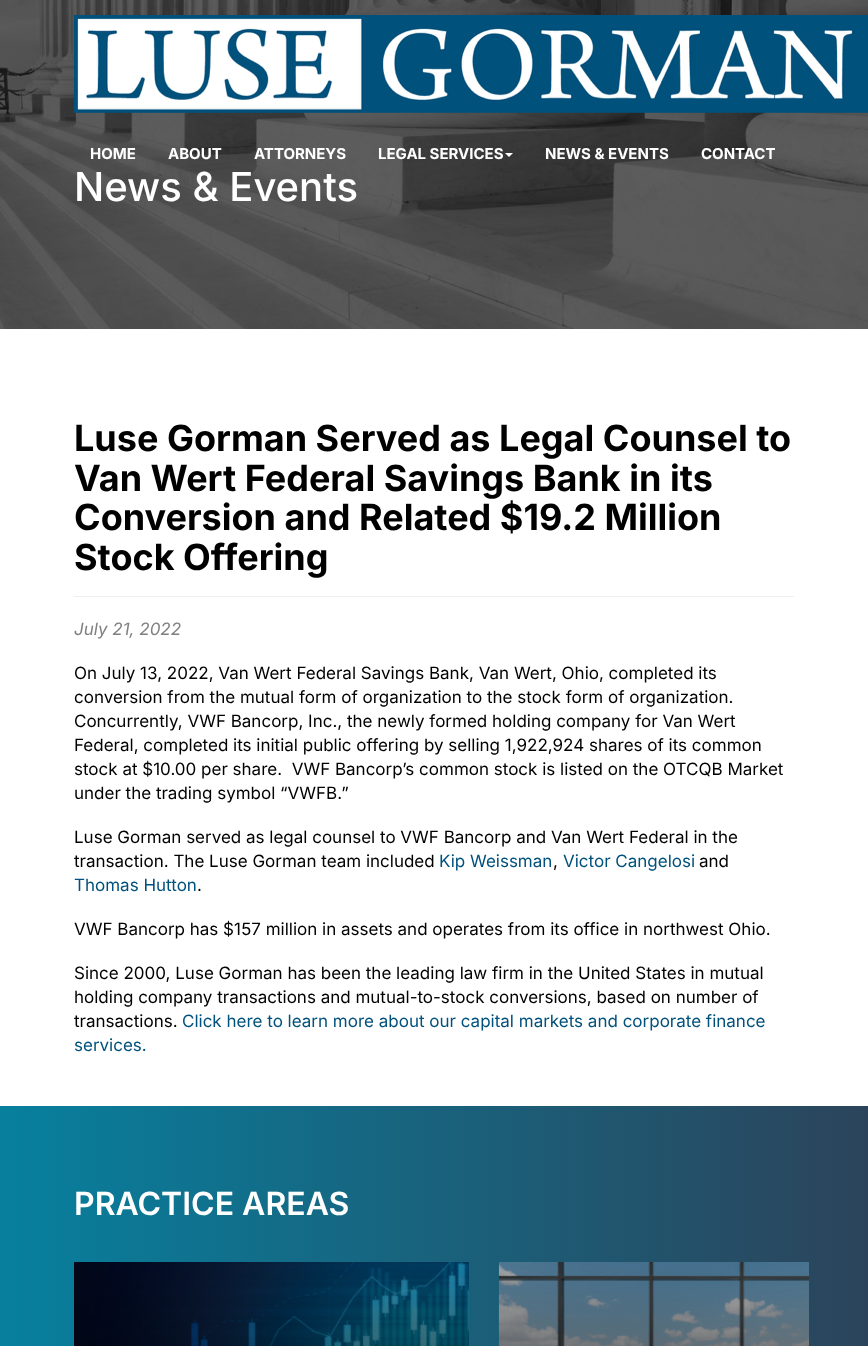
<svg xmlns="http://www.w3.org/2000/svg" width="868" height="1346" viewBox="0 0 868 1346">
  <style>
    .t1 { font: bold 15px Inter; fill: #fff; }
    .t2 { font: 500 40px Inter; fill: #fff; }
    .t3 { font: bold 36px Inter; fill: #000; }
    .t4 { font: italic 17px Inter; fill: #808080; }
    .t5 { font: 17px Inter; fill: #000; }
    .t6 { font: 17px Inter; fill: #00517c; }
    .t7 { font: 600 32px Inter; fill: #fff; }
  </style>
  <defs>
    <linearGradient id="g1" gradientUnits="userSpaceOnUse" x1="868" y1="1339" x2="0" y2="1339"><stop offset="0" stop-color="#2b445b"/><stop offset="1" stop-color="#07809e"/></linearGradient>
  </defs>
  <rect width="100%" height="100%" fill="#fff"/>
  <image x="0" y="0" width="868" height="329" href="images/1.png"/>
  <image x="74" y="15" width="794" height="98" href="images/2.png"/>
  <text x="90" y="159" class="t1">HOME</text>
  <text x="168" y="159" class="t1">ABOUT</text>
  <text x="254" y="159" class="t1">ATTORNEYS</text>
  <text x="378" y="159" class="t1">LEGAL SERVICES</text>
  <path d="M505 153H513L509 157Z" fill="#fff"/>
  <text x="545" y="159" class="t1">NEWS &amp; EVENTS</text>
  <text x="701" y="159" class="t1">CONTACT</text>
  <text x="74" y="201" class="t2">News &amp; Events</text>
  <rect x="74" y="596" width="720" height="1" fill="#eee"/>
  <text x="74" y="451" class="t3">Luse Gorman Served as Legal Counsel to</text>
  <text x="74" y="491" class="t3">Van Wert Federal Savings Bank in its</text>
  <text x="74" y="530" class="t3">Conversion and Related $19.2 Million</text>
  <text x="74" y="570" class="t3">Stock Offering</text>
  <text x="74" y="635" class="t4">July 21, 2022</text>
  <text x="74" y="679" class="t5">On July 13, 2022, Van Wert Federal Savings Bank, Van Wert, Ohio, completed its</text>
  <text x="74" y="703" class="t5">conversion from the mutual form of organization to the stock form of organization.</text>
  <text x="74" y="727" class="t5">Concurrently, VWF Bancorp, Inc., the newly formed holding company for Van Wert</text>
  <text x="74" y="751" class="t5">Federal, completed its initial public offering by selling 1,922,924 shares of its common</text>
  <text x="74" y="775" class="t5" xml:space="preserve">stock at $10.00 per share.  VWF Bancorp’s common stock is listed on the OTCQB Market</text>
  <text x="74" y="799" class="t5">under the trading symbol “VWFB.”</text>
  <text x="74" y="843" class="t5">Luse Gorman served as legal counsel to VWF Bancorp and Van Wert Federal in the</text>
  <text x="74" y="867" class="t5">transaction. The Luse Gorman team included</text>
  <text x="439" y="867" class="t6">Kip Weissman</text>
  <text x="553" y="867" class="t5">,</text>
  <text x="563" y="867" class="t6">Victor Cangelosi</text>
  <text x="699" y="867" class="t5">and</text>
  <text x="74" y="891" class="t6">Thomas Hutton</text>
  <text x="197" y="891" class="t5">.</text>
  <text x="74" y="935" class="t5">VWF Bancorp has $157 million in assets and operates from its office in northwest Ohio.</text>
  <text x="74" y="979" class="t5">Since 2000, Luse Gorman has been the leading law firm in the United States in mutual</text>
  <text x="74" y="1003" class="t5">holding company transactions and mutual-to-stock conversions, based on number of</text>
  <text x="74" y="1027" class="t5">transactions.</text>
  <text x="182" y="1027" class="t6">Click here to learn more about our capital markets and corporate finance</text>
  <text x="74" y="1051" class="t6">services.</text>
  <rect x="0" y="1106" width="868" height="240" fill="url(#g1)"/>
  <text x="74" y="1215" class="t7">PRACTICE AREAS</text>
  <image x="74" y="1262" width="395" height="84" href="images/3.png"/>
  <image x="498" y="1262" width="311" height="84" href="images/4.png"/>
</svg>
